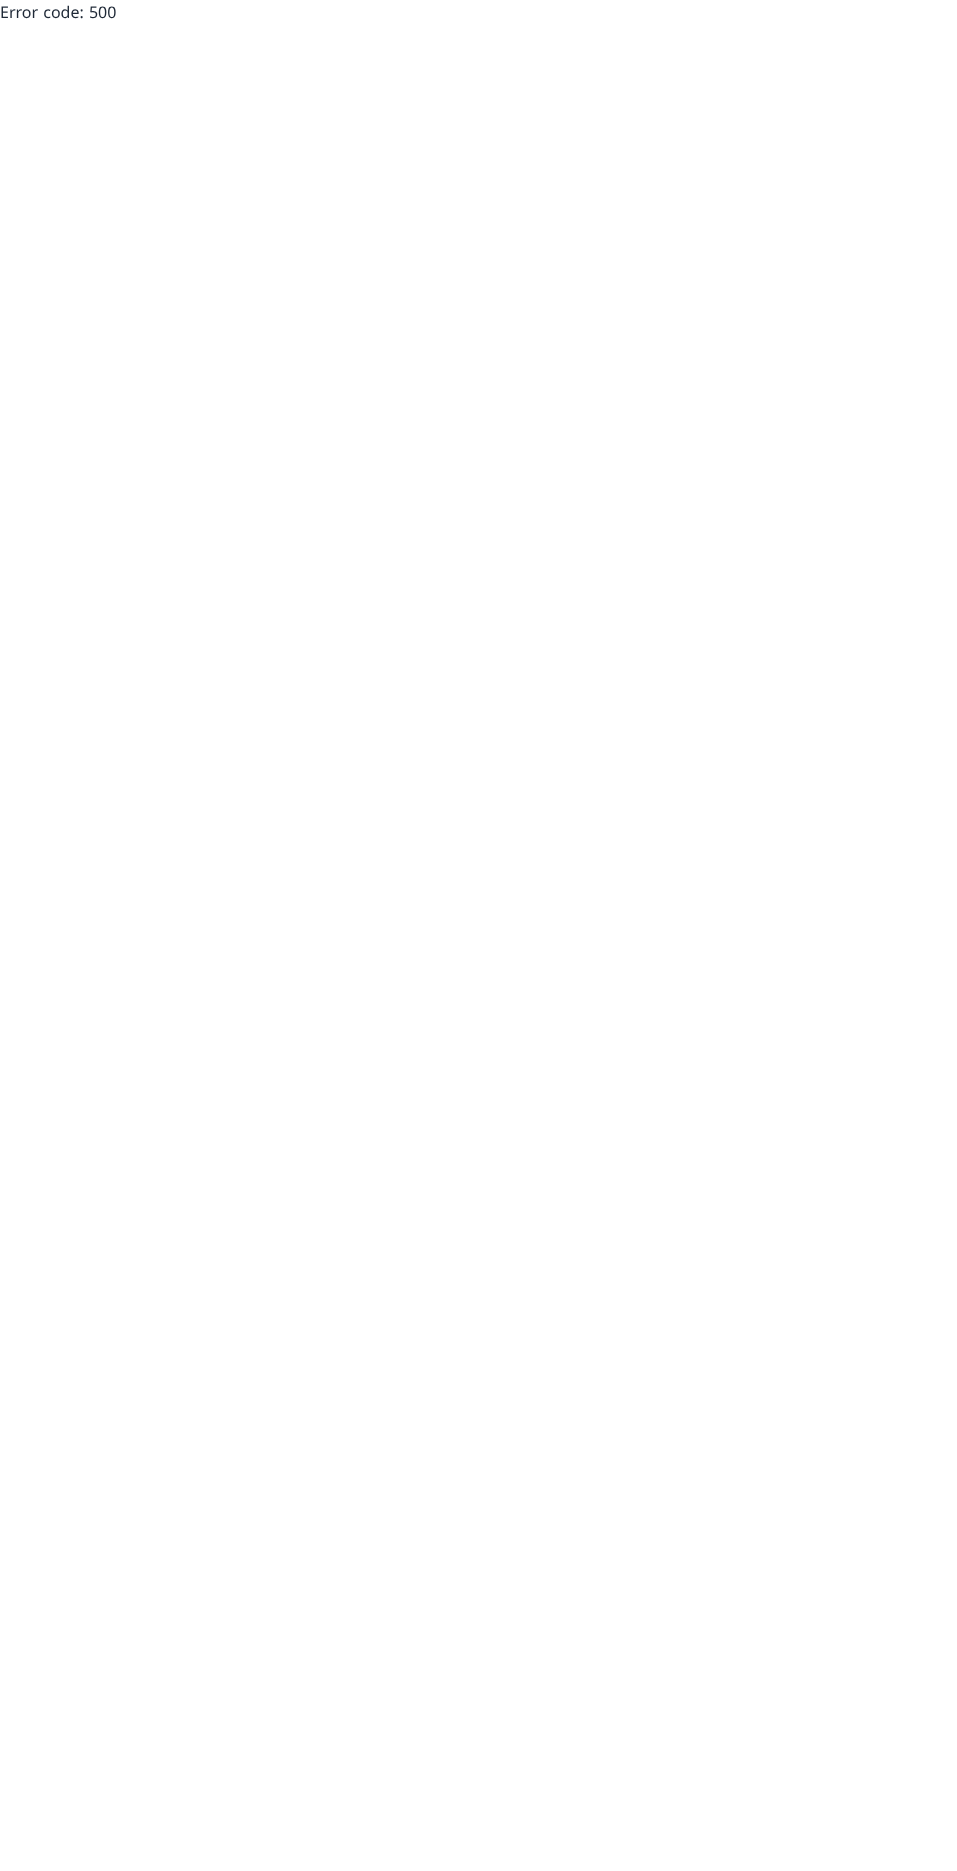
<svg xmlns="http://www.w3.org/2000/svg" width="957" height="1871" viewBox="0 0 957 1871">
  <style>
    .t1 { font: 16px Noto Sans; fill: #1f2937; }
  </style>
  <rect width="100%" height="100%" fill="#fff"/>
  <text x="0" y="18" word-spacing="1" class="t1">Error code: 500</text>
</svg>
